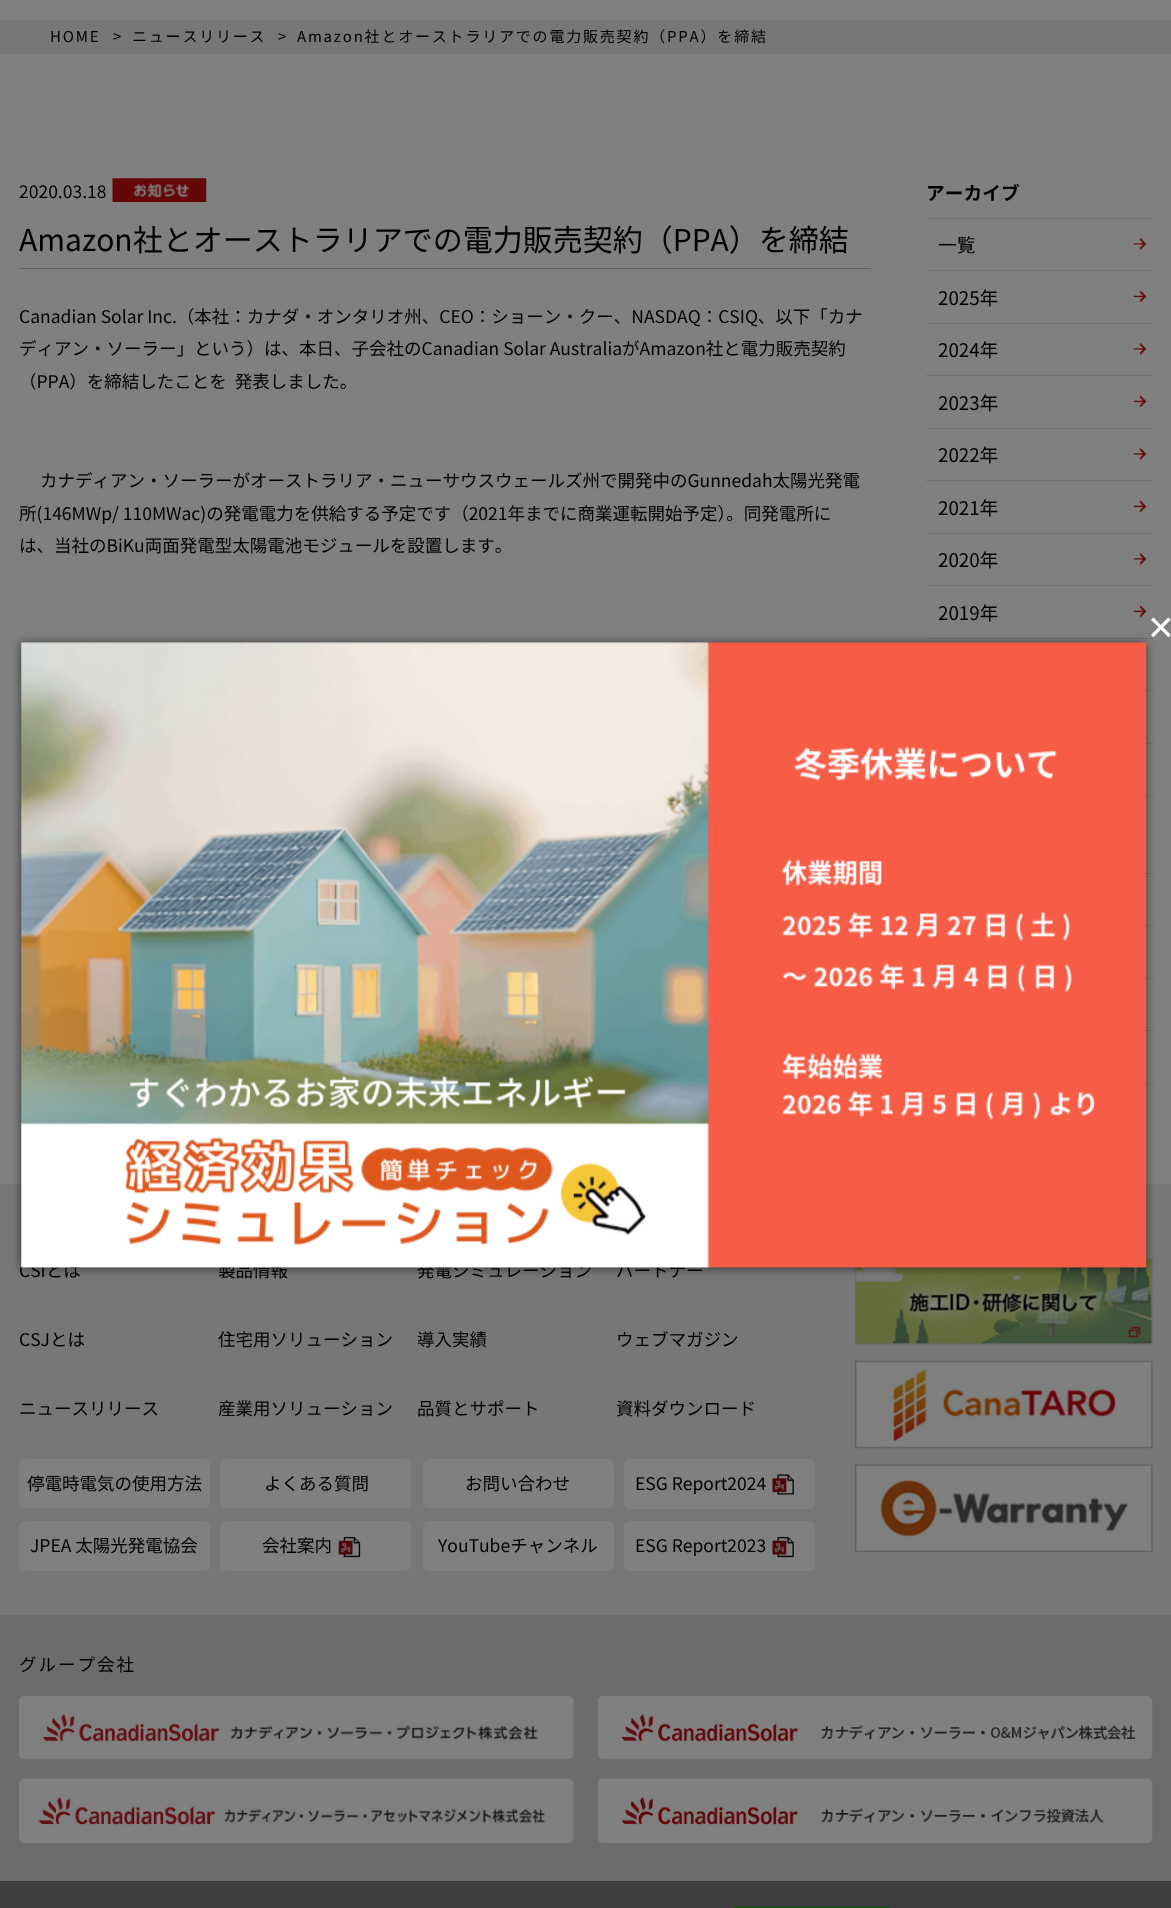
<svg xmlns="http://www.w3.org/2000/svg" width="1171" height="1908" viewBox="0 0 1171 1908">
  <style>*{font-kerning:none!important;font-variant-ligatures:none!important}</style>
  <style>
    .t1 { font: 15px Noto Sans JP; letter-spacing: 1.8px; fill: #000; }
    .t2 { font: 17.5px Noto Sans JP; fill: #000; }
    .t3 { font: 30px Noto Sans JP; fill: #000; }
    .t4 { font: bold 18.75px Noto Sans JP; fill: #000; }
    .t5 { font: 18.75px Noto Sans JP; fill: #000; }
    .t6 { font: 17.5px Noto Sans JP; letter-spacing: 2px; fill: #000; }
    .t7 { font: 44px Liberation Sans; fill: #fff; }
  </style>
  <rect width="100%" height="100%" fill="#808080"/>
  <rect x="0" y="20" width="1171" height="34" fill="#777"/>
  <text x="50" y="42" class="t1">HOME</text>
  <text x="113" y="42" class="t1">&gt;</text>
  <text x="132" y="42" class="t1">ニュースリリース</text>
  <text x="278" y="42" class="t1">&gt;</text>
  <text x="297" y="42" class="t1">Amazon社とオーストラリアでの電力販売契約（PPA）を締結</text>
  <rect x="19" y="268" width="852" height="1" fill="#626262"/>
  <text x="19" y="198" class="t2">2020.03.18</text>
  <image x="112" y="178" width="95" height="24" href="images/1.png"/>
  <text x="19" y="251" class="t3">Amazon社とオーストラリアでの電力販売契約（PPA）を締結</text>
  <text x="19" y="323" class="t2">Canadian Solar Inc.（本社：カナダ・オンタリオ州、CEO：ショーン・クー、NASDAQ：CSIQ、以下「カナ</text>
  <text x="19" y="355" class="t2">ディアン・ソーラー」という）は、本日、子会社のCanadian Solar AustraliaがAmazon社と電力販売契約</text>
  <text x="19" y="388" class="t2" xml:space="preserve">（PPA）を締結したことを  発表しました。</text>
  <text x="40" y="487" class="t2">カナディアン・ソーラーがオーストラリア・ニューサウスウェールズ州で開発中のGunnedah太陽光発電</text>
  <text x="19" y="520" class="t2">所(146MWp/ 110MWac)の発電電力を供給する予定です（2021年までに商業運転開始予定）。同発電所に</text>
  <text x="19" y="552" class="t2">は、当社のBiKu両面発電型太陽電池モジュールを設置します。</text>
  <rect x="926" y="218" width="227" height="1" fill="#727272"/>
  <text x="926" y="200" class="t4">アーカイブ</text>
  <rect x="926" y="270" width="227" height="1" fill="#727272"/>
  <image x="1133" y="238" width="14" height="12" href="images/2.png"/>
  <text x="938" y="252" class="t5">一覧</text>
  <rect x="926" y="323" width="227" height="1" fill="#727272"/>
  <image x="1133" y="290" width="14" height="12" href="images/3.png"/>
  <text x="938" y="305" class="t5">2025年</text>
  <rect x="926" y="375" width="227" height="1" fill="#727272"/>
  <image x="1133" y="343" width="14" height="12" href="images/2.png"/>
  <text x="938" y="357" class="t5">2024年</text>
  <rect x="926" y="428" width="227" height="1" fill="#727272"/>
  <image x="1133" y="395" width="14" height="12" href="images/3.png"/>
  <text x="938" y="410" class="t5">2023年</text>
  <rect x="926" y="480" width="227" height="1" fill="#727272"/>
  <image x="1133" y="448" width="14" height="12" href="images/2.png"/>
  <text x="938" y="462" class="t5">2022年</text>
  <rect x="926" y="533" width="227" height="1" fill="#727272"/>
  <image x="1133" y="500" width="14" height="12" href="images/3.png"/>
  <text x="938" y="515" class="t5">2021年</text>
  <rect x="926" y="585" width="227" height="1" fill="#727272"/>
  <image x="1133" y="553" width="14" height="12" href="images/2.png"/>
  <text x="938" y="567" class="t5">2020年</text>
  <rect x="926" y="638" width="227" height="1" fill="#727272"/>
  <image x="1133" y="605" width="14" height="12" href="images/3.png"/>
  <text x="938" y="620" class="t5">2019年</text>
  <rect x="1146" y="690" width="7" height="1" fill="#727272"/>
  <image x="1146" y="658" width="1" height="12" href="images/4.png"/>
  <rect x="1146" y="743" width="7" height="1" fill="#727272"/>
  <image x="1146" y="710" width="1" height="12" href="images/5.png"/>
  <rect x="1146" y="795" width="7" height="1" fill="#727272"/>
  <image x="1146" y="763" width="1" height="12" href="images/4.png"/>
  <rect x="1146" y="873" width="7" height="1" fill="#727272"/>
  <rect x="1146" y="925" width="7" height="1" fill="#727272"/>
  <image x="1146" y="893" width="1" height="12" href="images/4.png"/>
  <rect x="1146" y="978" width="7" height="1" fill="#727272"/>
  <image x="1146" y="945" width="1" height="12" href="images/5.png"/>
  <rect x="1146" y="1030" width="7" height="1" fill="#727272"/>
  <image x="1146" y="998" width="1" height="12" href="images/4.png"/>
  <rect x="1146" y="1083" width="7" height="1" fill="#727272"/>
  <image x="1146" y="1050" width="1" height="12" href="images/5.png"/>
  <rect x="0" y="1184" width="1171" height="431" fill="#777"/>
  <text x="19" y="1277" class="t2">CSIとは</text>
  <text x="218" y="1277" class="t2">製品情報</text>
  <text x="417" y="1277" class="t2">発電シミュレーション</text>
  <text x="616" y="1277" class="t2">パートナー</text>
  <text x="19" y="1346" class="t2">CSJとは</text>
  <text x="218" y="1346" class="t2">住宅用ソリューション</text>
  <text x="417" y="1346" class="t2">導入実績</text>
  <text x="616" y="1346" class="t2">ウェブマガジン</text>
  <text x="19" y="1415" class="t2">ニュースリリース</text>
  <text x="218" y="1415" class="t2">産業用ソリューション</text>
  <text x="417" y="1415" class="t2">品質とサポート</text>
  <text x="616" y="1415" class="t2">資料ダウンロード</text>
  <rect x="19" y="1459" width="191" height="49" rx="6" fill="#808080"/>
  <text x="27" y="1490" class="t2">停電時電気の使用方法</text>
  <rect x="220" y="1459" width="191" height="49" rx="6" fill="#808080"/>
  <text x="264" y="1490" class="t2">よくある質問</text>
  <rect x="423" y="1459" width="191" height="49" rx="6" fill="#808080"/>
  <text x="465" y="1490" class="t2">お問い合わせ</text>
  <rect x="624" y="1459" width="191" height="50" rx="6" fill="#808080"/>
  <text x="635" y="1490" class="t2">ESG Report2024</text>
  <image x="772" y="1474" width="22" height="21" href="images/6.png"/>
  <rect x="19" y="1521" width="191" height="50" rx="6" fill="#808080"/>
  <text x="30" y="1552" class="t2">JPEA 太陽光発電協会</text>
  <rect x="220" y="1521" width="191" height="50" rx="6" fill="#808080"/>
  <text x="262" y="1552" class="t2">会社案内</text>
  <image x="338" y="1536" width="23" height="22" href="images/7.png"/>
  <rect x="423" y="1521" width="191" height="50" rx="6" fill="#808080"/>
  <text x="438" y="1552" class="t2">YouTubeチャンネル</text>
  <rect x="624" y="1521" width="191" height="50" rx="6" fill="#808080"/>
  <text x="635" y="1552" class="t2">ESG Report2023</text>
  <image x="772" y="1536" width="22" height="22" href="images/8.png"/>
  <image x="855" y="1258" width="298" height="87" href="images/9.png"/>
  <image x="855" y="1360" width="298" height="89" href="images/10.png"/>
  <image x="855" y="1464" width="298" height="88" href="images/11.png"/>
  <rect x="0" y="1615" width="1171" height="266" fill="#6c6c6c"/>
  <text x="19" y="1671" class="t6">グループ会社</text>
  <image x="19" y="1696" width="555" height="64" href="images/12.png"/>
  <image x="597" y="1696" width="556" height="64" href="images/13.png"/>
  <image x="19" y="1778" width="555" height="65" href="images/14.png"/>
  <image x="597" y="1778" width="556" height="65" href="images/15.png"/>
  <rect x="0" y="1881" width="1171" height="27" fill="#3e3e3e"/>
  <image x="733" y="1907" width="159" height="1" href="images/16.png"/>
  <rect x="21" y="643" width="1125" height="625" fill="#00000099" filter="blur(5px)"/>
  <text x="1148" y="642" class="t7">×</text>
  <image x="21" y="642" width="1126" height="626" href="images/17.png"/>
</svg>
